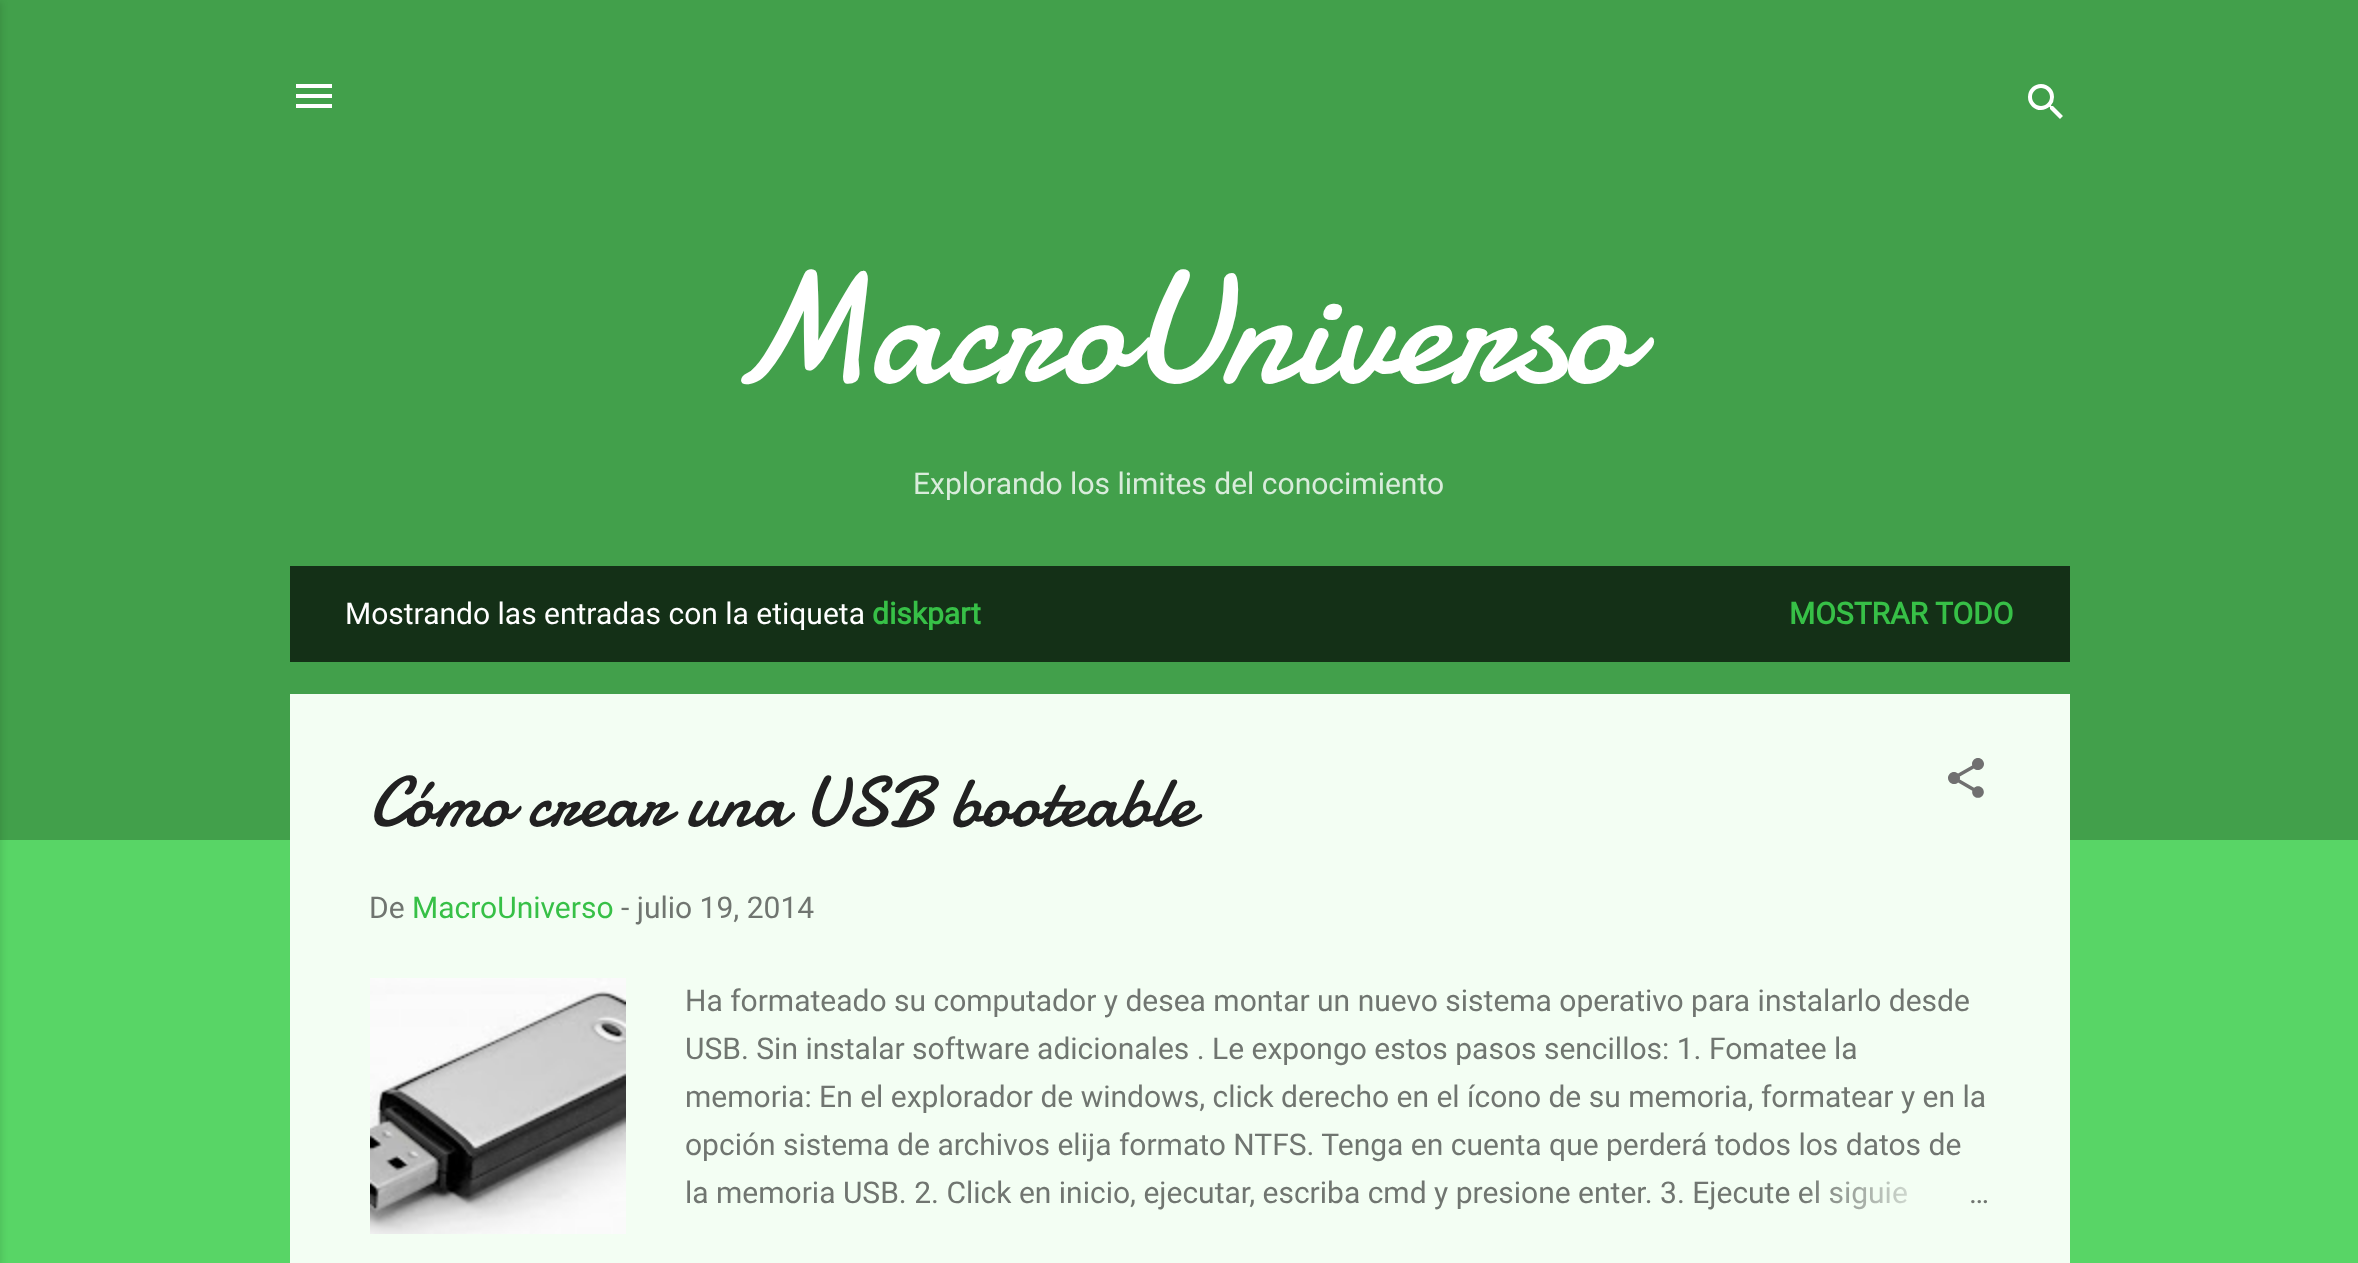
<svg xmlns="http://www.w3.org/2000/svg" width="2358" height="1263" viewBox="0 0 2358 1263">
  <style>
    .t1 { font: 160px Damion; fill: #fff; }
    .t2 { font: 30px Roboto; fill: #d9ecdb; }
    .t3 { font: 30px Roboto; fill: #fff; }
    .t4 { font: bold 30px Roboto; fill: #37c047; }
    .t5 { font: 72px Damion; fill: #212121; }
    .t6 { font: 30px Roboto; fill: #707570; }
    .t7 { font: 30px Roboto; fill: #37c047; }
  </style>
  <defs>
    <linearGradient id="g1" gradientUnits="userSpaceOnUse" x1="1990" y1="1194" x2="1798" y2="1194"><stop offset="0" stop-color="#f3fef3"/><stop offset="0.2" stop-color="#f3fef3"/><stop offset="1" stop-color="#f3fef3" stop-opacity="0"/></linearGradient>
  </defs>
  <rect width="100%" height="100%" fill="#58d566"/>
  <rect x="0" y="0" width="2358" height="840" fill="#42a04b"/>
  <rect x="-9" y="2" width="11" height="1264" fill="#0000001a" filter="blur(3px)"/>
  <image x="296" y="84" width="36" height="24" href="images/1.png"/>
  <image x="2028" y="84" width="35" height="35" href="images/2.png"/>
  <text x="727" y="382" class="t1">MacroUniverso</text>
  <text x="913" y="494" class="t2">Explorando los limites del conocimiento</text>
  <rect x="290" y="566" width="1780" height="96" fill="#143017"/>
  <text x="345" y="624" class="t3">Mostrando las entradas con la etiqueta</text>
  <text x="872" y="624" class="t4">diskpart</text>
  <text x="1789" y="624" class="t4">MOSTRAR TODO</text>
  <rect x="290" y="694" width="1780" height="569" fill="#f3fef3"/>
  <text x="369" y="826" class="t5">Cómo crear una USB booteable</text>
  <image x="1948" y="758" width="36" height="40" href="images/3.png"/>
  <text x="369" y="918" class="t6">De</text>
  <text x="412" y="918" class="t7">MacroUniverso</text>
  <text x="621" y="918" class="t6">- julio 19, 2014</text>
  <image x="370" y="978" width="256" height="256" href="images/4.png"/>
  <text x="685" y="1011" class="t6">Ha formateado su computador y desea montar un nuevo sistema operativo para instalarlo desde</text>
  <text x="685" y="1059" class="t6">USB. Sin instalar software adicionales . Le expongo estos pasos sencillos: 1. Fomatee la</text>
  <text x="685" y="1107" class="t6">memoria: En el explorador de windows, click derecho en el ícono de su memoria, formatear y en la</text>
  <text x="685" y="1155" class="t6">opción sistema de archivos elija formato NTFS. Tenga en cuenta que perderá todos los datos de</text>
  <text x="685" y="1203" class="t6">la memoria USB. 2. Click en inicio, ejecutar, escriba cmd y presione enter. 3. Ejecute el siguie</text>
  <rect x="1801" y="1180" width="106" height="30" fill="url(#g1)"/>
  <text x="1969" y="1203" class="t6">…</text>
</svg>
